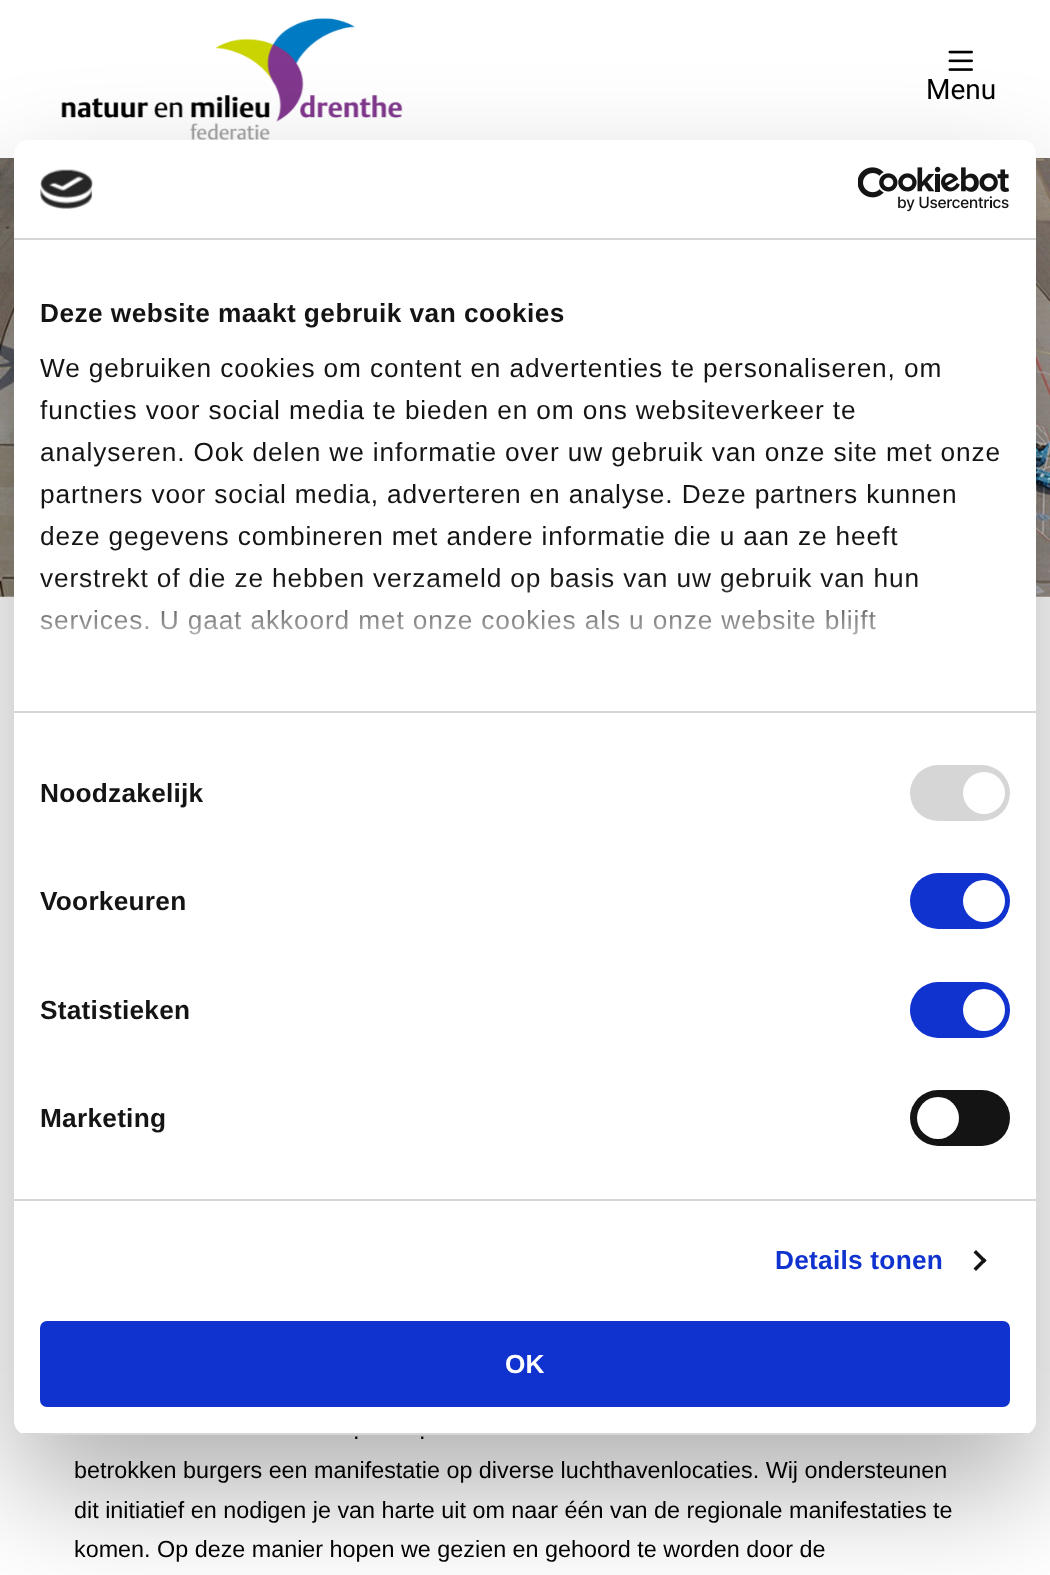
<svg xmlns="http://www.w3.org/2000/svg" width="1050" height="1575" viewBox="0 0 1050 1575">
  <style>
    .t1 { font: 28px Roboto; fill: #000; }
    .t2 { font: bold 26.25px Liberation Sans; letter-spacing: 0.45px; fill: #141414; }
    .t3 { font: 26.25px Liberation Sans; letter-spacing: 0.88px; fill: #141414; }
    .t4 { font: bold 26.25px Liberation Sans; letter-spacing: 0.25px; fill: #141414; }
    .t5 { font: bold 26.25px Liberation Sans; letter-spacing: 0.25px; fill: #1032cf; }
    .t6 { font: bold 26.25px Liberation Sans; fill: #fff; }
    .t7 { font: 23.35px Liberation Sans; fill: #000; }
  </style>
  <defs>
    <linearGradient id="g1" gradientUnits="userSpaceOnUse" x1="514" y1="711" x2="514" y2="580"><stop offset="0" stop-color="#fff"/><stop offset="0.5" stop-color="#fff" stop-opacity="0.8"/><stop offset="1" stop-color="#fff" stop-opacity="0"/></linearGradient>
    <clipPath id="clip1"><rect x="14" y="140" width="1022" height="1295" rx="14"/></clipPath>
  </defs>
  <rect width="100%" height="100%" fill="#fff"/>
  <image x="61" y="18" width="342" height="122" href="images/1.png"/>
  <image x="948" y="50" width="25" height="21" href="images/2.png"/>
  <text x="926" y="99" class="t1">Menu</text>
  <image x="0" y="158" width="1050" height="439" href="images/5.png"/>
  <rect x="14" y="196" width="1022" height="1295" rx="14" fill="#0000004d" filter="blur(59.5px)"/>
  <rect x="14" y="140" width="1022" height="1295" rx="14" fill="#fff"/>
  <rect x="14" y="238" width="1022" height="2" fill="#d6d6d6"/>
  <image x="40" y="169" width="53" height="40" href="images/3.png"/>
  <image x="858" y="166" width="152" height="46" href="images/4.png"/>
  <rect x="14" y="711" width="1022" height="2" fill="#d6d6d6"/>
  <text x="40" y="322" class="t2">Deze website maakt gebruik van cookies</text>
  <text x="40" y="377" class="t3">We gebruiken cookies om content en advertenties te personaliseren, om</text>
  <text x="40" y="419" class="t3">functies voor social media te bieden en om ons websiteverkeer te</text>
  <text x="40" y="461" class="t3">analyseren. Ook delen we informatie over uw gebruik van onze site met onze</text>
  <text x="40" y="503" class="t3">partners voor social media, adverteren en analyse. Deze partners kunnen</text>
  <text x="40" y="545" class="t3">deze gegevens combineren met andere informatie die u aan ze heeft</text>
  <text x="40" y="587" class="t3">verstrekt of die ze hebben verzameld op basis van uw gebruik van hun</text>
  <text x="40" y="629" class="t3">services. U gaat akkoord met onze cookies als u onze website blijft</text>
  <rect x="41" y="582" width="877" height="53" fill="url(#g1)"/>
  <rect x="14" y="1199" width="1022" height="2" fill="#d6d6d6"/>
  <text x="40" y="802" class="t4">Noodzakelijk</text>
  <rect x="910" y="765" width="100" height="56" rx="28" fill="#d6d6d6"/>
  <circle cx="984" cy="793" r="21" fill="#fff"/>
  <text x="40" y="910" class="t4">Voorkeuren</text>
  <rect x="910" y="873" width="100" height="56" rx="28" fill="#1032cf"/>
  <circle cx="984" cy="901" r="21" fill="#fff"/>
  <text x="40" y="1019" class="t4">Statistieken</text>
  <rect x="910" y="982" width="100" height="56" rx="28" fill="#1032cf"/>
  <circle cx="984" cy="1010" r="21" fill="#fff"/>
  <text x="40" y="1127" class="t4">Marketing</text>
  <rect x="910" y="1090" width="100" height="56" rx="28" fill="#141414"/>
  <circle cx="938" cy="1118" r="21" fill="#fff"/>
  <text x="775" y="1269" class="t5">Details tonen</text>
  <path d="M976 1250L986.5 1260.5L984 1263L973.5 1252.5Z" fill="#141414"/>
  <path d="M984 1258L986.5 1260.5L976 1271L973.5 1268.5Z" fill="#141414"/>
  <g clip-path="url(#clip1)">
    <rect x="14" y="1433" width="1022" height="2" fill="#d6d6d6"/>
  </g>
  <rect x="42" y="1323" width="966" height="82" rx="5" fill="#1032cf" stroke="#1032cf" stroke-width="4"/>
  <text x="505" y="1373" class="t6">OK</text>
  <text x="353" y="1439" class="t7">.</text>
  <text x="419" y="1439" class="t7">.</text>
  <text x="74" y="1478" class="t7">betrokken burgers een manifestatie op diverse luchthavenlocaties. Wij ondersteunen</text>
  <text x="74" y="1518" class="t7">dit initiatief en nodigen je van harte uit om naar één van de regionale manifestaties te</text>
  <text x="74" y="1557" class="t7">komen. Op deze manier hopen we gezien en gehoord te worden door de</text>
</svg>
